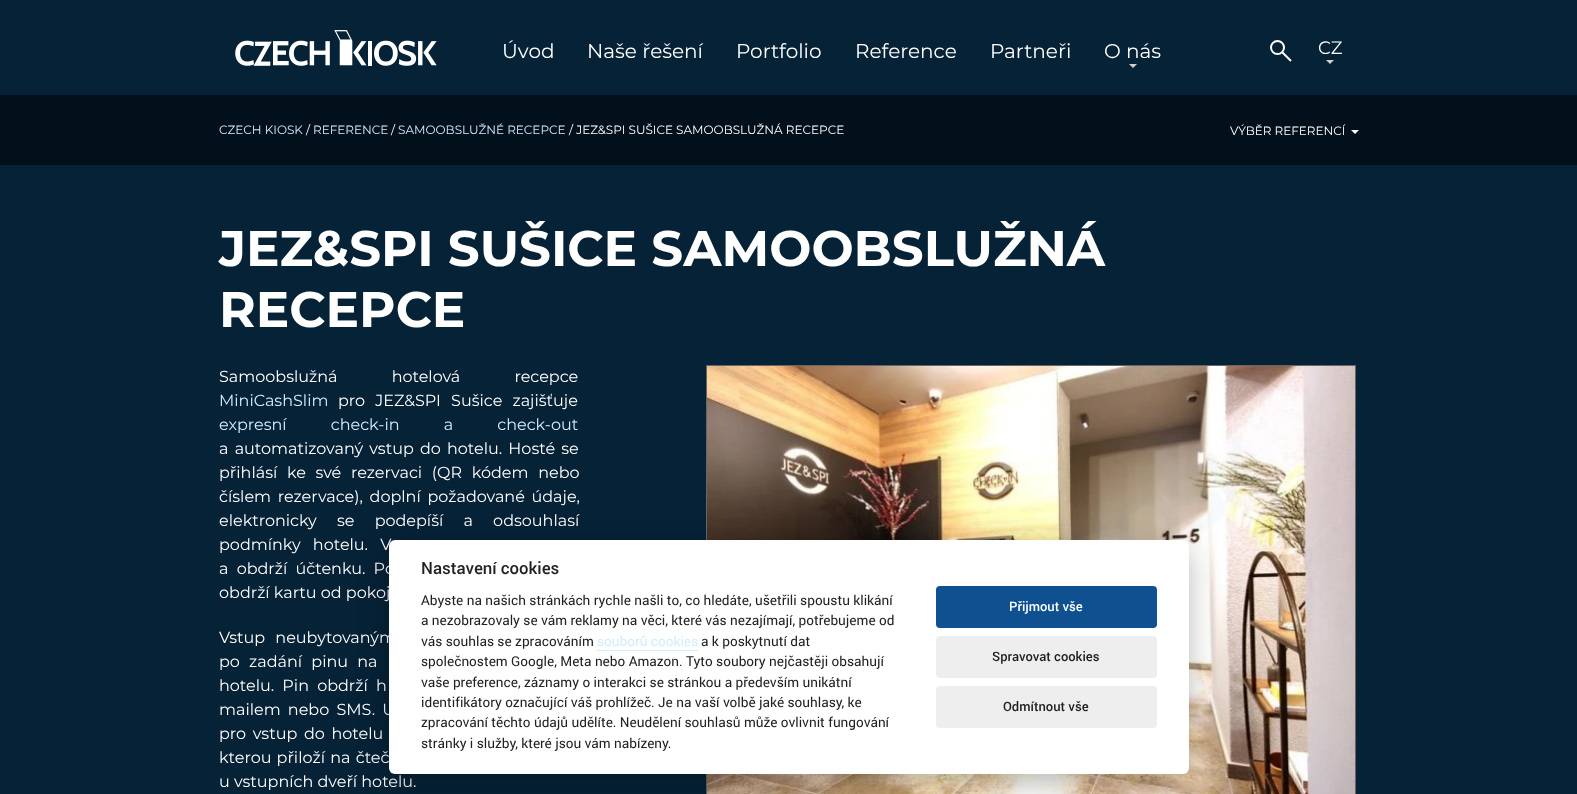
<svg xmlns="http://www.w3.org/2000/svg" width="1577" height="794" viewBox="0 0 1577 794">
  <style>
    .t1 { font: 20px Montserrat; fill: #fff; }
    .t2 { font: 18px Montserrat; fill: #fff; }
    .t3 { font: 12px Montserrat; fill: #d3ebff; }
    .t4 { font: 12px Montserrat; fill: #fff; }
    .t5 { font: bold 50px Montserrat; fill: #fff; }
    .t6 { font: 16px Montserrat; fill: #fff; }
    .t7 { font: 16px Montserrat; fill: #d3ebff; }
    .t8 { font: 500 16.75px Roboto; fill: #222; }
    .t9 { font: 13.6px Roboto; fill: #222; }
    .t10 { font: 13.6px Roboto; fill: #d3ebff; }
    .t11 { font: 500 13px Roboto; fill: #fff; }
    .t12 { font: 500 13px Roboto; fill: #222; }
  </style>
  <rect width="100%" height="100%" fill="#062237"/>
  <image x="235" y="30" width="202" height="36" href="images/1.png"/>
  <text x="502" y="58" class="t1">Úvod</text>
  <text x="587" y="58" class="t1">Naše řešení</text>
  <text x="736" y="58" class="t1">Portfolio</text>
  <text x="855" y="58" class="t1">Reference</text>
  <text x="990" y="58" class="t1">Partneři</text>
  <text x="1104" y="58" class="t1">O nás</text>
  <path d="M1129 64H1137L1133 68Z" fill="#d0d0d0"/>
  <circle cx="1277.5" cy="47.5" r="6.5" fill="none" stroke="#fff" stroke-width="2"/>
  <path d="M1282.5 52.5L1291 61" fill="none" stroke="#fff" stroke-width="2"/>
  <text x="1318" y="54" class="t2">CZ</text>
  <path d="M1326 60H1334L1330 64Z" fill="#d0d0d0"/>
  <rect x="0" y="95" width="1577" height="70" fill="#02101b"/>
  <text x="219" y="134" class="t3">CZECH KIOSK</text>
  <text x="306" y="134" class="t4">/</text>
  <text x="313" y="134" class="t3">REFERENCE</text>
  <text x="391" y="134" class="t4">/</text>
  <text x="398" y="134" class="t3">SAMOOBSLUŽNÉ RECEPCE</text>
  <text x="569" y="134" class="t4">/ JEZ&amp;SPI SUŠICE SAMOOBSLUŽNÁ RECEPCE</text>
  <text x="1230" y="135" class="t4">VÝBĚR REFERENCÍ</text>
  <path d="M1351 130H1359L1355 134Z" fill="#fff"/>
  <text x="219" y="266" class="t5">JEZ&amp;SPI SUŠICE SAMOOBSLUŽNÁ</text>
  <text x="219" y="327" class="t5">RECEPCE</text>
  <text x="219" y="382" word-spacing="50" class="t6">Samoobslužná hotelová recepce</text>
  <text x="219" y="406" class="t7">MiniCashSlim</text>
  <text x="338" y="406" word-spacing="6" class="t6">pro JEZ&amp;SPI Sušice zajišťuje</text>
  <text x="219" y="430" word-spacing="40" class="t7">expresní check-in a check-out</text>
  <text x="219" y="454" word-spacing="2" class="t6">a automatizovaný vstup do hotelu. Hosté se</text>
  <text x="219" y="478" word-spacing="5.5" class="t6">přihlásí ke své rezervaci (QR kódem nebo</text>
  <text x="219" y="502" word-spacing="2.5" class="t6">číslem rezervace), doplní požadované údaje,</text>
  <text x="219" y="526" word-spacing="16" class="t6">elektronicky se podepíší a odsouhlasí</text>
  <text x="219" y="550" word-spacing="8" class="t6">podmínky hotelu. V</text>
  <text x="219" y="574" word-spacing="4" class="t6">a obdrží účtenku. Po</text>
  <text x="219" y="598" class="t6">obdrží kartu od pokoj</text>
  <text x="219" y="643" word-spacing="6" class="t6">Vstup neubytovaným</text>
  <text x="219" y="667" word-spacing="5" class="t6">po zadání pinu na</text>
  <text x="219" y="691" word-spacing="4" class="t6">hotelu. Pin obdrží h</text>
  <text x="219" y="715" word-spacing="3" class="t6">mailem nebo SMS. U</text>
  <text x="219" y="739" word-spacing="2.5" class="t6">pro vstup do hotelu</text>
  <text x="219" y="763" word-spacing="1" class="t6">kterou přiloží na čteč</text>
  <text x="219" y="787" class="t6">u vstupních dveří hotelu.</text>
  <rect x="706.5" y="365.5" width="649" height="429" fill="none" stroke="#666"/>
  <image x="707" y="366" width="648" height="428" href="images/2.png"/>
  <rect x="389" y="550" width="800" height="234" rx="6" fill="#02020347" filter="blur(15px)"/>
  <rect x="389" y="540" width="800" height="234" rx="6" fill="#fff"/>
  <text x="421" y="574" class="t8">Nastavení cookies</text>
  <text x="421" y="605" class="t9">Abyste na našich stránkách rychle našli to, co hledáte, ušetřili spoustu klikání</text>
  <text x="421" y="625" class="t9">a nezobrazovaly se vám reklamy na věci, které vás nezajímají, potřebujeme od</text>
  <text x="421" y="646" class="t9">vás souhlas se zpracováním</text>
  <text x="597" y="646" class="t10">souborů cookies</text>
  <rect x="597" y="650" width="101" height="1" fill="#d3ebff"/>
  <text x="701" y="646" class="t9">a k poskytnutí dat</text>
  <text x="421" y="666" class="t9">společnostem Google, Meta nebo Amazon. Tyto soubory nejčastěji obsahují</text>
  <text x="421" y="687" class="t9">vaše preference, záznamy o interakci se stránkou a především unikátní</text>
  <text x="421" y="707" class="t9">identifikátory označující váš prohlížeč. Je na vaší volbě jaké souhlasy, ke</text>
  <text x="421" y="727" class="t9">zpracování těchto údajů udělíte. Neudělení souhlasů může ovlivnit fungování</text>
  <text x="421" y="748" class="t9">stránky i služby, které jsou vám nabízeny.</text>
  <rect x="936" y="586" width="221" height="42" rx="4" fill="#0e5090"/>
  <text x="1009" y="611" class="t11">Přijmout vše</text>
  <rect x="936" y="636" width="221" height="42" rx="4" fill="#eee"/>
  <text x="992" y="661" class="t12">Spravovat cookies</text>
  <rect x="936" y="686" width="221" height="42" rx="4" fill="#eee"/>
  <text x="1003" y="711" class="t12">Odmítnout vše</text>
</svg>
